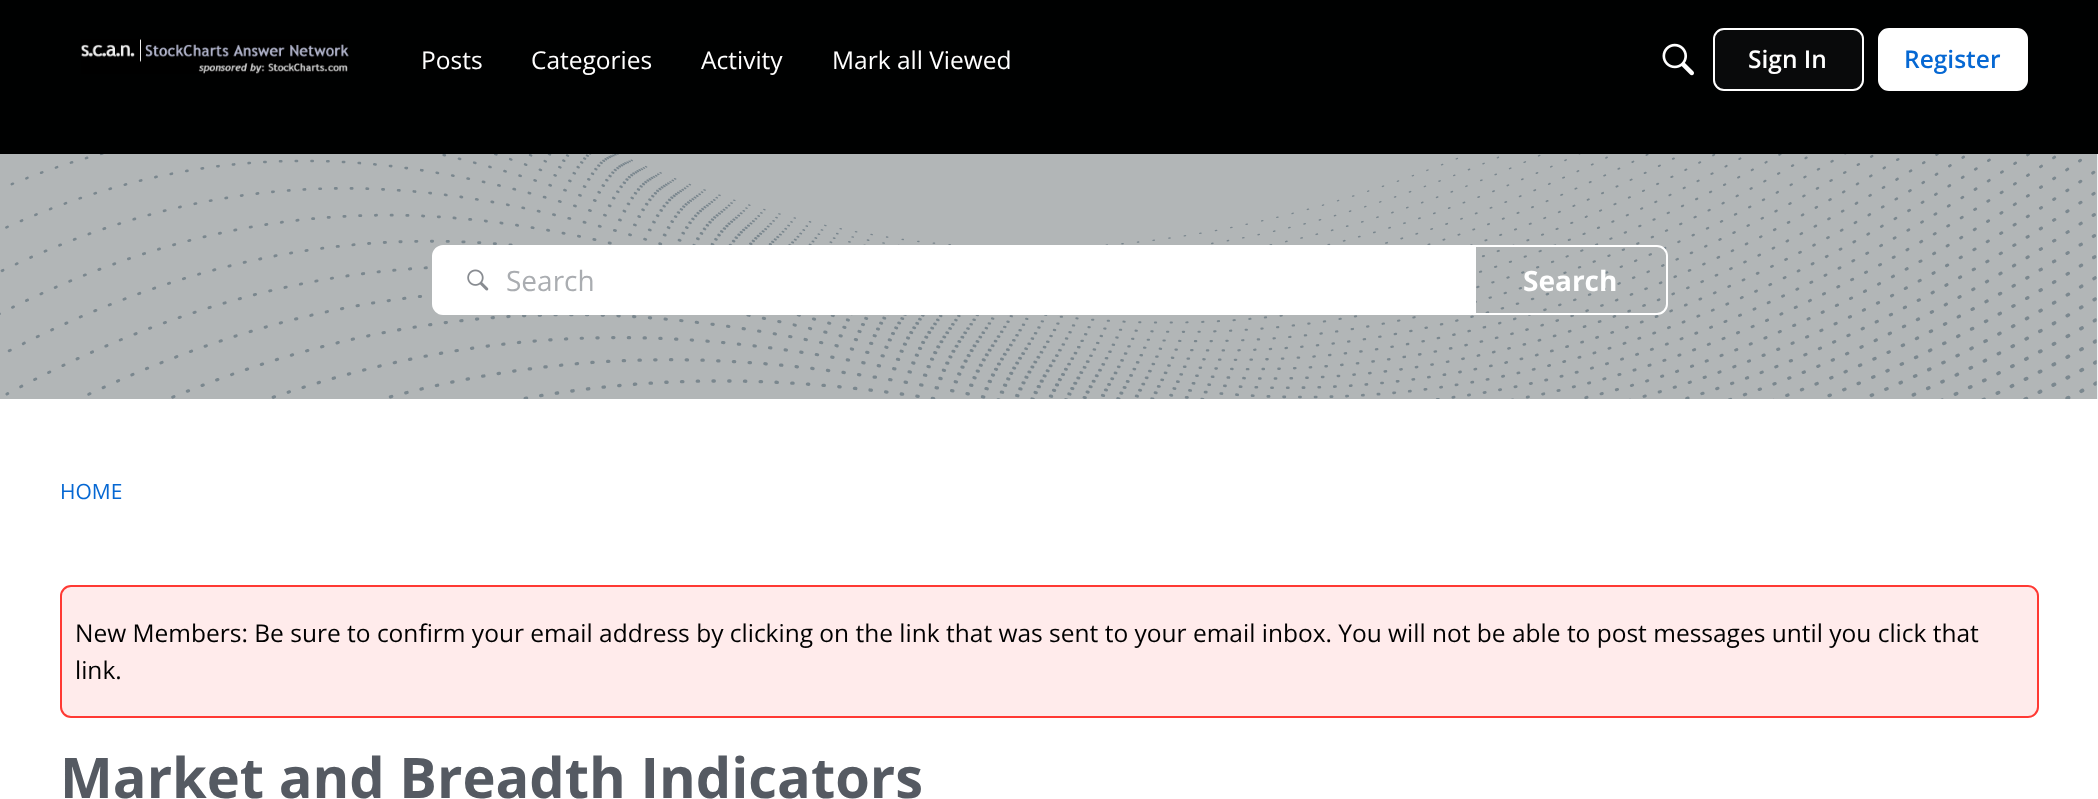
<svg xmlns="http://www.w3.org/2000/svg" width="2098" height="799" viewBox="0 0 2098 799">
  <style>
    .t1 { font: 24.5px Open Sans; fill: #fff; }
    .t2 { font: 600 24.5px Open Sans; fill: #fff; }
    .t3 { font: 600 24.5px Open Sans; fill: #0668d3; }
    .t4 { font: 28px Open Sans; fill: #aaadb1; }
    .t5 { font: bold 28px Open Sans; fill: #fff; }
    .t6 { font: 21px Open Sans; fill: #0668d3; }
    .t7 { font: 24.5px Open Sans; fill: #000; }
    .t8 { font: bold 56px Open Sans; fill: #555a62; }
  </style>
  <rect width="100%" height="100%" fill="#fff"/>
  <rect x="0" y="0" width="2098" height="154" fill="#000101"/>
  <image x="81" y="39" width="268" height="35" href="images/1.png"/>
  <text x="421" y="69" class="t1">Posts</text>
  <text x="531" y="69" class="t1">Categories</text>
  <text x="701" y="69" class="t1">Activity</text>
  <text x="832" y="69" class="t1">Mark all Viewed</text>
  <image x="1662" y="43" width="32" height="33" href="images/2.png"/>
  <rect x="1714" y="29" width="149" height="61" rx="10" fill="#090a0b" stroke="#fff" stroke-width="2"/>
  <text x="1748" y="68" class="t2">Sign In</text>
  <rect x="1879" y="29" width="148" height="61" rx="10" fill="#fff" stroke="#fff" stroke-width="2"/>
  <text x="1904" y="68" class="t3">Register</text>
  <rect x="2097" y="154" width="1" height="245" fill="#eef2f4"/>
  <image x="0" y="154" width="2097" height="245" href="images/3.png"/>
  <path d="M1475 246H1657C1662.5 246 1667 250.5 1667 256V304C1667 309.5 1662.5 314 1657 314H1475Z" fill="none" stroke="#fff" stroke-width="2"/>
  <path d="M443 245H1475V315H443C437 315 432 310 432 304V256C432 250 437 245 443 245Z" fill="#fff"/>
  <image x="467" y="269" width="22" height="22" href="images/4.png"/>
  <text x="506" y="291" class="t4">Search</text>
  <text x="1523" y="291" class="t5">Search</text>
  <text x="60" y="499" class="t6">HOME</text>
  <rect x="61" y="586" width="1977" height="131" rx="10" fill="#ffebeb" stroke="#ff3933" stroke-width="2"/>
  <text x="75" y="642" class="t7">New Members: Be sure to confirm your email address by clicking on the link that was sent to your email inbox. You will not be able to post messages until you click that</text>
  <text x="75" y="679" class="t7">link.</text>
  <text x="60" y="798" class="t8">Market and Breadth Indicators</text>
</svg>
